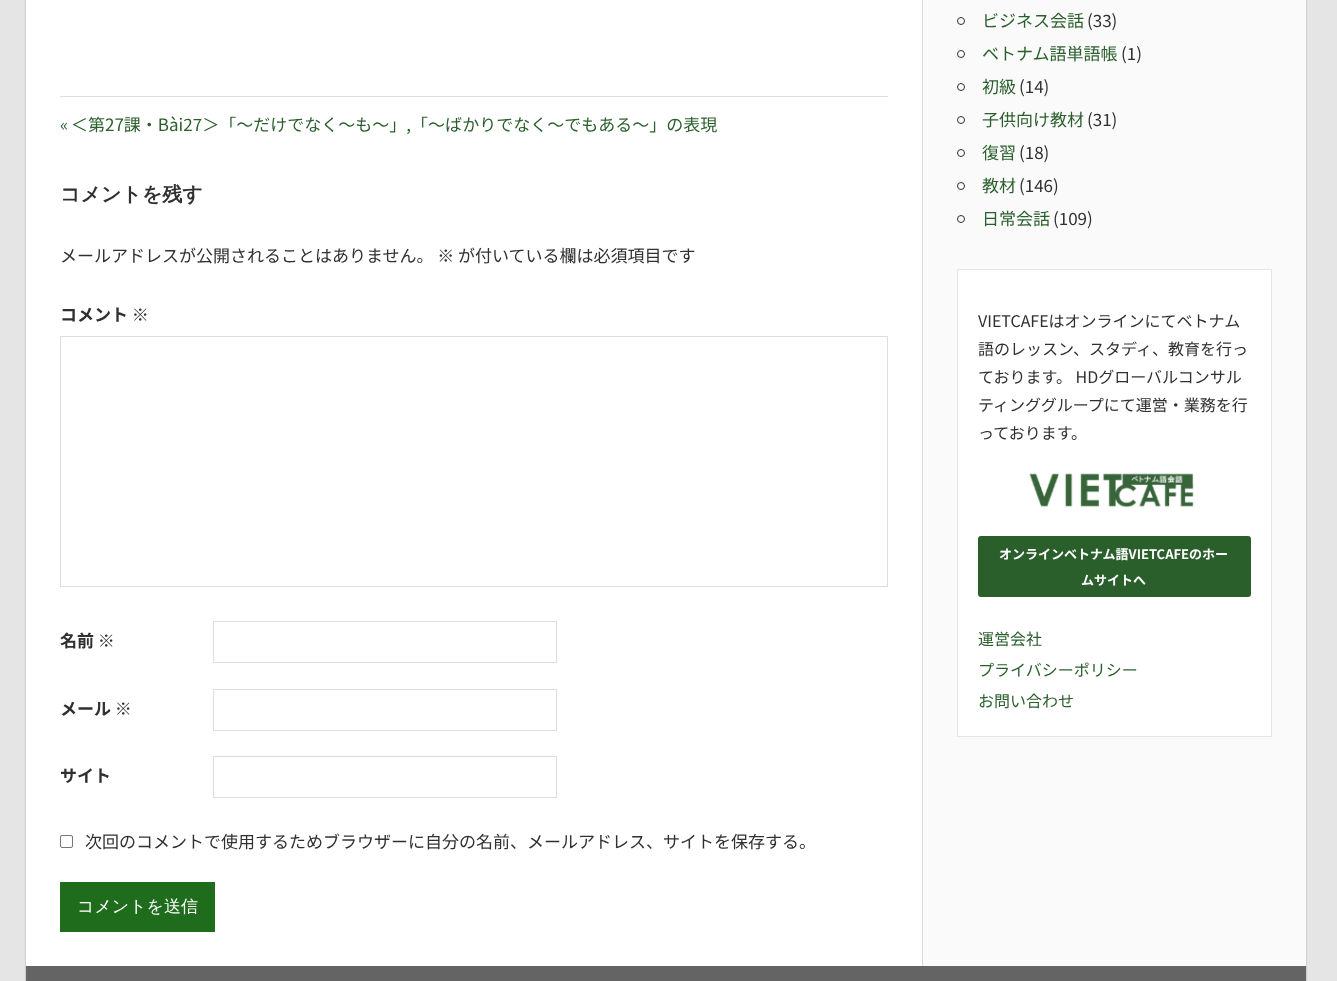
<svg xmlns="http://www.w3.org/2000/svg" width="1337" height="981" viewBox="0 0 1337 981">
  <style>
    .t1 { font: 17px Noto Sans JP; fill: #2a5f2c; }
    .t2 { font: bold 20px WenQuanYi Zen Hei; fill: #303030; }
    .t3 { font: 17px Noto Sans JP; fill: #303030; }
    .t4 { font: bold 17px Noto Sans JP; fill: #303030; }
    .t5 { font: 500 17px WenQuanYi Zen Hei; fill: #fff; }
    .t6 { font: 16px Noto Sans JP; fill: #303030; }
    .t7 { font: bold 13px Noto Sans JP; fill: #fff; }
    .t8 { font: 16px Noto Sans JP; fill: #2a5f2c; }
  </style>
  <rect width="100%" height="100%" fill="#e5e5e5"/>
  <rect x="26" y="-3" width="1280" height="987" fill="#aaa" filter="blur(1px)"/>
  <rect x="26" y="0" width="896" height="966" fill="#fff"/>
  <rect x="60" y="96" width="828" height="1" fill="#ddd"/>
  <text x="60" y="131" class="t1">«</text>
  <text x="71" y="131" class="t1">＜第27課・Bài27＞「～だけでなく～も～」,「～ばかりでなく～でもある～」の表現</text>
  <text x="60" y="201" class="t2">コメントを残す</text>
  <text x="60" y="262" class="t3">メールアドレスが公開されることはありません。 ※ が付いている欄は必須項目です</text>
  <text x="60" y="321" class="t4">コメント ※</text>
  <rect x="60.5" y="336.5" width="827" height="250" fill="none" stroke="#ddd"/>
  <text x="60" y="647" class="t4">名前 ※</text>
  <rect x="213.5" y="621.5" width="343" height="41" fill="none" stroke="#ddd"/>
  <text x="60" y="715" class="t4">メール ※</text>
  <rect x="213.5" y="689.5" width="343" height="41" fill="none" stroke="#ddd"/>
  <text x="60" y="782" class="t4">サイト</text>
  <rect x="213.5" y="756.5" width="343" height="41" fill="none" stroke="#ddd"/>
  <rect x="60.5" y="835.5" width="12" height="12" rx="1.5" fill="none" stroke="#767676"/>
  <text x="85" y="848" class="t3">次回のコメントで使用するためブラウザーに自分の名前、メールアドレス、サイトを保存する。</text>
  <rect x="60" y="882" width="155" height="50" fill="#206c1d"/>
  <text x="77" y="912" class="t5">コメントを送信</text>
  <rect x="923" y="0" width="383" height="966" fill="#fafafa"/>
  <rect x="922" y="0" width="1" height="966" fill="#ddd"/>
  <circle cx="961" cy="21" r="3.5" fill="none" stroke="#303030"/>
  <text x="982" y="27" class="t1">ビジネス会話</text>
  <text x="1087" y="27" class="t3">(33)</text>
  <circle cx="961" cy="54" r="3.5" fill="none" stroke="#303030"/>
  <text x="982" y="60" class="t1">ベトナム語単語帳</text>
  <text x="1121" y="60" class="t3">(1)</text>
  <circle cx="961" cy="87" r="3.5" fill="none" stroke="#303030"/>
  <text x="982" y="93" class="t1">初級</text>
  <text x="1019" y="93" class="t3">(14)</text>
  <circle cx="961" cy="120" r="3.5" fill="none" stroke="#303030"/>
  <text x="982" y="126" class="t1">子供向け教材</text>
  <text x="1087" y="126" class="t3">(31)</text>
  <circle cx="961" cy="153" r="3.5" fill="none" stroke="#303030"/>
  <text x="982" y="159" class="t1">復習</text>
  <text x="1019" y="159" class="t3">(18)</text>
  <circle cx="961" cy="186" r="3.5" fill="none" stroke="#303030"/>
  <text x="982" y="192" class="t1">教材</text>
  <text x="1019" y="192" class="t3">(146)</text>
  <circle cx="961" cy="219" r="3.5" fill="none" stroke="#303030"/>
  <text x="982" y="225" class="t1">日常会話</text>
  <text x="1053" y="225" class="t3">(109)</text>
  <rect x="957.5" y="269.5" width="314" height="467" fill="#fff" stroke="#e5e5e5"/>
  <text x="978" y="327" class="t6">VIETCAFEはオンラインにてベトナム</text>
  <text x="978" y="355" class="t6">語のレッスン、スタディ、教育を行っ</text>
  <text x="978" y="383" class="t6">ております。 HDグローバルコンサル</text>
  <text x="978" y="411" class="t6">ティンググループにて運営・業務を行</text>
  <text x="978" y="439" class="t6">っております。</text>
  <image x="1029" y="473" width="165" height="35" href="images/1.png"/>
  <rect x="978" y="536" width="273" height="61" rx="3" fill="#2a5f2c"/>
  <text x="999" y="559" class="t7">オンラインベトナム語VIETCAFEのホー</text>
  <text x="1081" y="585" class="t7">ムサイトへ</text>
  <text x="978" y="645" class="t8">運営会社</text>
  <text x="978" y="676" class="t8">プライバシーポリシー</text>
  <text x="978" y="707" class="t8">お問い合わせ</text>
  <rect x="26" y="966" width="1280" height="15" fill="#646464"/>
</svg>
